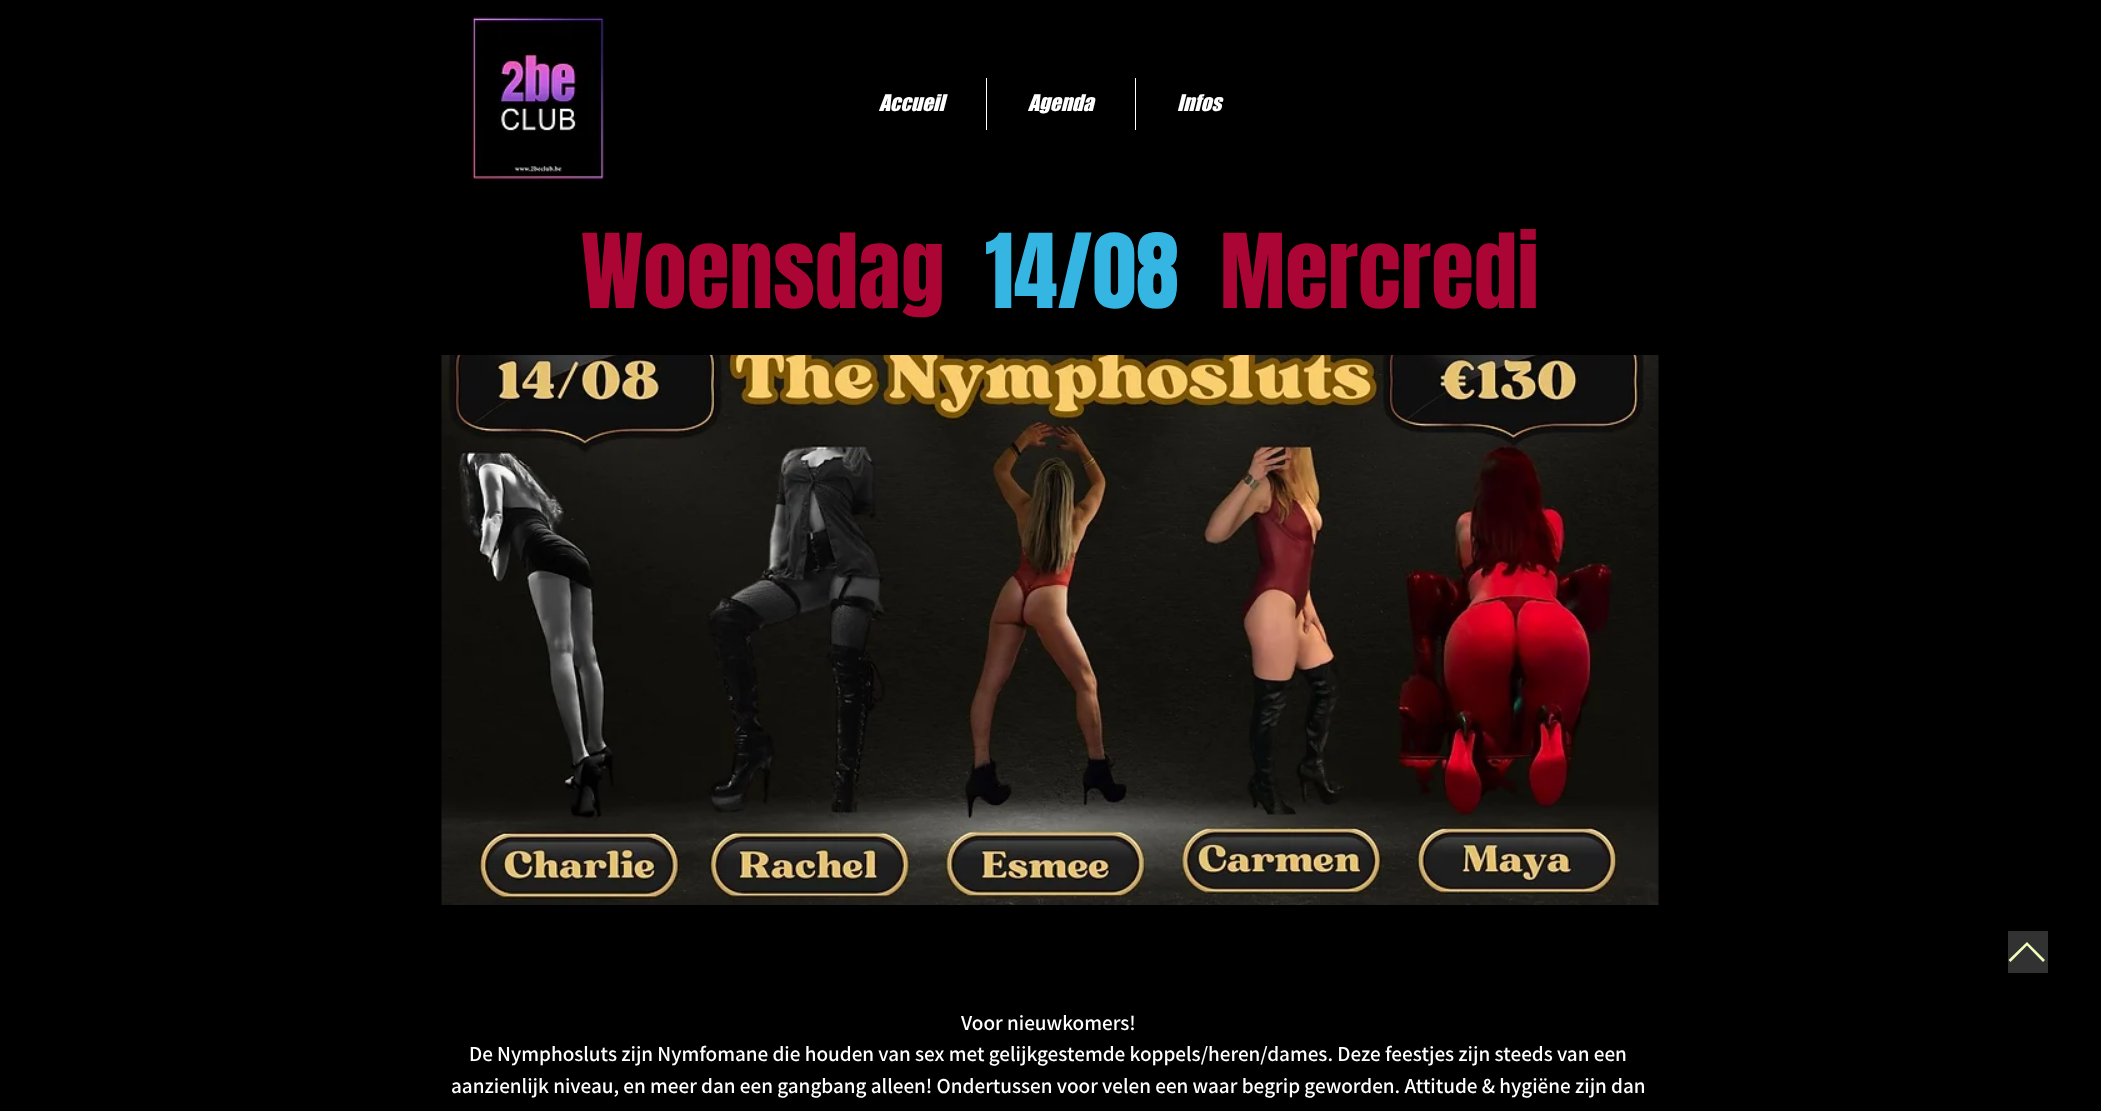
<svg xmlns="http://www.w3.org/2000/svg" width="2101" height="1111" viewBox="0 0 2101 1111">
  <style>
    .t1 { font: italic 21.25px 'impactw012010'; fill: #fff; }
    .t2 { font: 87.5px Anton; fill: #ab0535; }
    .t3 { font: 87.5px Anton; fill: #35b6e2; }
    .t4 { font: 600 21.25px Assistant; fill: #fff; }
  </style>
  <rect width="100%" height="100%" fill="#000"/>
  <image x="472" y="16" width="132" height="165" href="images/1.png"/>
  <text x="879" y="111" class="t1">Accueil</text>
  <rect x="986" y="78" width="1" height="52" fill="#fff"/>
  <text x="1028" y="111" class="t1">Agenda</text>
  <rect x="1135" y="78" width="1" height="52" fill="#fff"/>
  <text x="1177" y="111" class="t1">Infos</text>
  <text x="581" y="308" class="t2">Woensdag</text>
  <text x="985" y="308" class="t3">14/08</text>
  <text x="1220" y="308" class="t2">Mercredi</text>
  <image x="441" y="355" width="1218" height="550" href="images/2.png"/>
  <text x="961" y="1030" class="t4">Voor nieuwkomers!</text>
  <text x="469" y="1061" class="t4">De Nymphosluts zijn Nymfomane die houden van sex met gelijkgestemde koppels/heren/dames. Deze feestjes zijn steeds van een</text>
  <text x="451" y="1093" class="t4">aanzienlijk niveau, en meer dan een gangbang alleen! Ondertussen voor velen een waar begrip geworden. Attitude &amp; hygiëne zijn dan</text>
  <rect x="2008" y="931" width="40" height="42" fill="#323232"/>
  <path d="M2008.5 960L2010.5 962L2027 945.5L2043 962L2045 960L2027 942Z" fill="#edffbb"/>
</svg>
